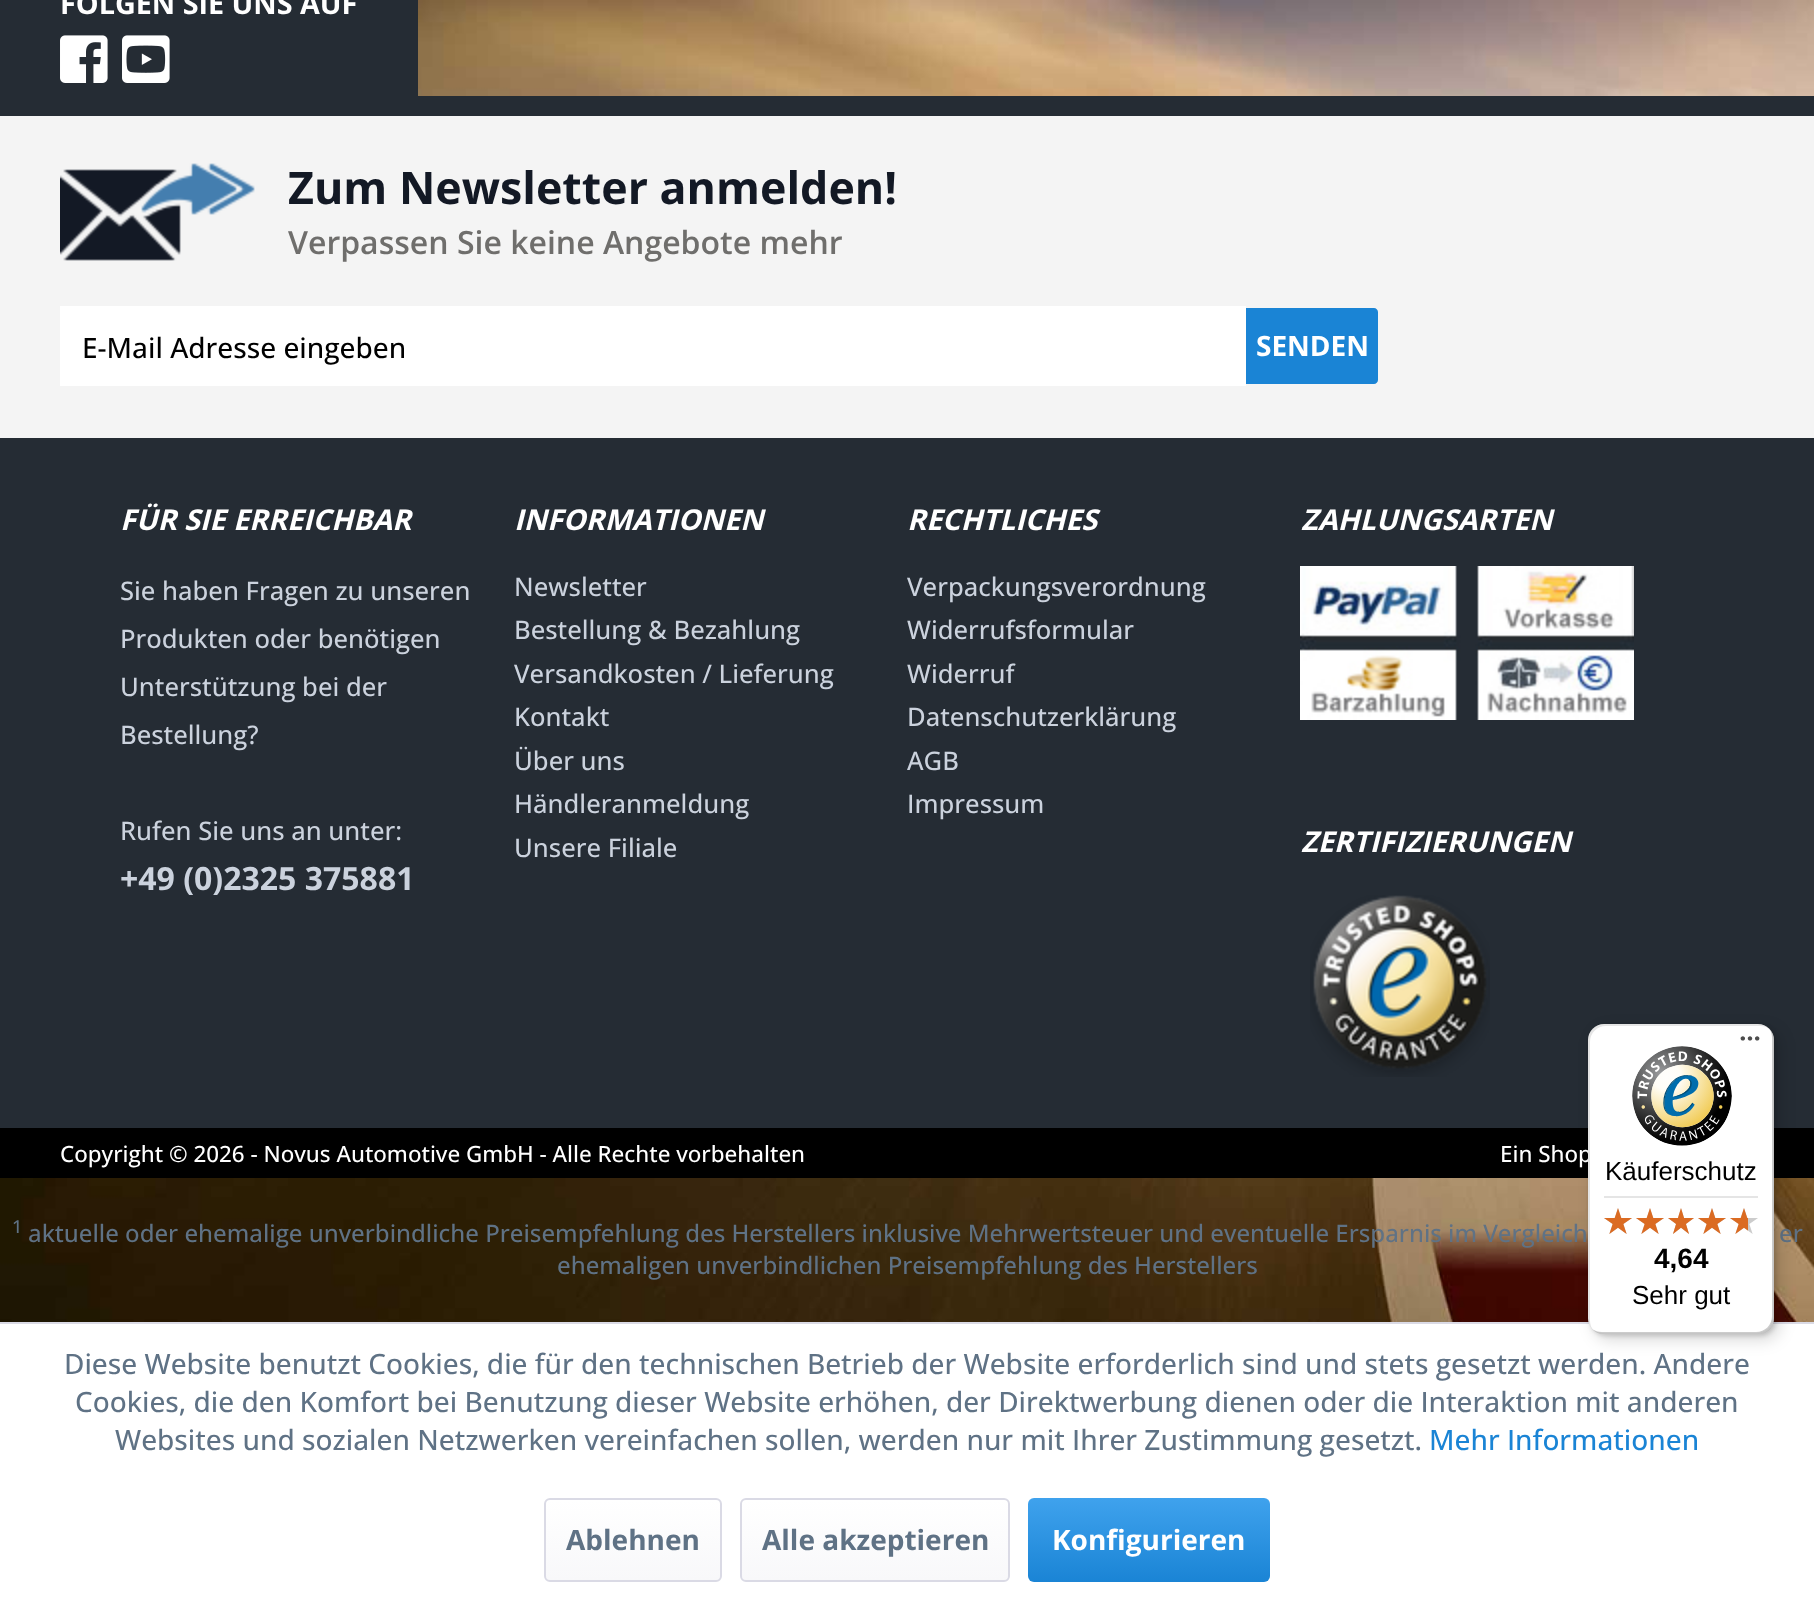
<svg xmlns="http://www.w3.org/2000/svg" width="1814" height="1601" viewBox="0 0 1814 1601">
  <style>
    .t1 { font: bold 28.75px Open Sans; fill: #fff; }
    .t2 { font: bold 44.75px Open Sans; fill: #131925; }
    .t3 { font: 600 32px Open Sans; fill: #6f6e6c; }
    .t4 { font: 500 28px Open Sans; fill: #000; }
    .t5 { font: bold 28px Open Sans; fill: #fff; }
    .t6 { font: italic bold 28.75px Open Sans; fill: #fff; }
    .t7 { font: 500 25.6px Open Sans; fill: #cbd2dd; }
    .t8 { font: bold 32px Open Sans; fill: #cbd2dd; }
    .t9 { font: 500 22.4px Open Sans; fill: #fff; }
    .t10 { font: 500 18px Open Sans; fill: #5f7285; }
    .t11 { font: 500 24px Open Sans; fill: #5f7285; }
    .t12 { font: 26px Liberation Sans; fill: #000; }
    .t13 { font: bold 28px Liberation Sans; fill: #000; }
    .t14 { font: 500 28px Open Sans; fill: #5f7285; }
    .t15 { font: 500 28px Open Sans; fill: #1a84d5; }
    .t16 { font: bold 28px Open Sans; fill: #5f7285; }
  </style>
  <defs>
    <linearGradient id="g1" gradientUnits="userSpaceOnUse" x1="633" y1="1500" x2="633" y2="1580"><stop offset="0" stop-color="#fff"/><stop offset="1" stop-color="#f8f8fa"/></linearGradient>
    <linearGradient id="g2" gradientUnits="userSpaceOnUse" x1="875" y1="1500" x2="875" y2="1580"><stop offset="0" stop-color="#fff"/><stop offset="1" stop-color="#f8f8fa"/></linearGradient>
    <linearGradient id="g3" gradientUnits="userSpaceOnUse" x1="1149" y1="1498" x2="1149" y2="1582"><stop offset="0" stop-color="#3fa2ed"/><stop offset="1" stop-color="#1a84d5"/></linearGradient>
  </defs>
  <rect width="100%" height="100%" fill="#fff"/>
  <image x="0" y="0" width="1814" height="1322" href="images/1.png"/>
  <rect x="0" y="0" width="418" height="96" fill="#252c34"/>
  <text x="60" y="14" class="t1">FOLGEN SIE UNS AUF</text>
  <image x="60" y="35" width="48" height="48" href="images/2.png"/>
  <image x="122" y="35" width="48" height="48" href="images/3.png"/>
  <rect x="0" y="116" width="1814" height="322" fill="#f4f4f4"/>
  <rect x="0" y="96" width="1814" height="20" fill="#252c34"/>
  <image x="60" y="163" width="195" height="98" href="images/4.png"/>
  <text x="288" y="204" class="t2">Zum Newsletter anmelden!</text>
  <text x="288" y="254" class="t3">Verpassen Sie keine Angebote mehr</text>
  <rect x="60" y="306" width="1186" height="80" fill="#fff"/>
  <text x="82" y="358" class="t4">E-Mail Adresse eingeben</text>
  <path d="M1246 308H1374C1376 308 1378 310 1378 312V380C1378 382 1376 384 1374 384H1246Z" fill="#1a84d5"/>
  <text x="1256" y="356" class="t5">SENDEN</text>
  <rect x="0" y="438" width="1814" height="690" fill="#252c34"/>
  <text x="120" y="530" class="t6">FÜR SIE ERREICHBAR</text>
  <text x="120" y="600" class="t7">Sie haben Fragen zu unseren</text>
  <text x="120" y="648" class="t7">Produkten oder benötigen</text>
  <text x="120" y="696" class="t7">Unterstützung bei der</text>
  <text x="120" y="744" class="t7">Bestellung?</text>
  <text x="120" y="840" class="t7">Rufen Sie uns an unter:</text>
  <text x="120" y="890" class="t8">+49 (0)2325 375881</text>
  <text x="514" y="530" class="t6">INFORMATIONEN</text>
  <text x="514" y="596" class="t7">Newsletter</text>
  <text x="514" y="639" class="t7">Bestellung &amp; Bezahlung</text>
  <text x="514" y="683" class="t7">Versandkosten / Lieferung</text>
  <text x="514" y="726" class="t7">Kontakt</text>
  <text x="514" y="770" class="t7">Über uns</text>
  <text x="514" y="813" class="t7">Händleranmeldung</text>
  <text x="514" y="857" class="t7">Unsere Filiale</text>
  <text x="907" y="530" class="t6">RECHTLICHES</text>
  <text x="907" y="596" class="t7">Verpackungsverordnung</text>
  <text x="907" y="639" class="t7">Widerrufsformular</text>
  <text x="907" y="683" class="t7">Widerruf</text>
  <text x="907" y="726" class="t7">Datenschutzerklärung</text>
  <text x="907" y="770" class="t7">AGB</text>
  <text x="907" y="813" class="t7">Impressum</text>
  <text x="1301" y="530" class="t6">ZAHLUNGSARTEN</text>
  <image x="1300" y="566" width="334" height="154" href="images/5.png"/>
  <text x="1301" y="852" class="t6">ZERTIFIZIERUNGEN</text>
  <image x="1310" y="895" width="180" height="182" href="images/6.png"/>
  <rect x="0" y="1128" width="1814" height="50" fill="#000"/>
  <text x="60" y="1162" class="t9">Copyright © 2026 - Novus Automotive GmbH - Alle Rechte vorbehalten</text>
  <text x="1500" y="1162" class="t9">Ein Shop</text>
  <text x="12" y="1233" class="t10">1</text>
  <text x="28" y="1242" class="t11">aktuelle oder ehemalige unverbindliche Preisempfehlung des Herstellers inklusive Mehrwertsteuer und eventuelle Ersparnis im Vergleich</text>
  <text x="1779" y="1242" class="t11">er</text>
  <text x="557" y="1274" class="t11">ehemaligen unverbindlichen Preisempfehlung des Herstellers</text>
  <rect x="0" y="1322" width="1814" height="2" fill="#dadae5"/>
  <rect x="1594" y="1030" width="186" height="310" rx="16" fill="#00000026" filter="blur(8px)"/>
  <rect x="1590" y="1026" width="186" height="310" rx="16" fill="#00000026" filter="blur(2px)"/>
  <rect x="1588" y="1024" width="186" height="310" rx="16" fill="#fff"/>
  <path d="M1606 1026H1760C1764 1026 1767 1027 1770 1029C1767 1026 1763 1024 1758 1024H1604C1595 1024 1588 1031 1588 1040V1318C1588 1323 1590 1327 1593 1330C1591 1327 1590 1324 1590 1320V1042C1590 1033 1597 1026 1606 1026Z" fill="#0000001a"/>
  <path d="M1592 1329C1595 1332 1599 1334 1604 1334H1758C1767 1334 1774 1327 1774 1318V1040C1774 1035 1772 1031 1769 1028C1771 1031 1772 1034 1772 1038V1316C1772 1325 1765 1332 1756 1332H1602C1598 1332 1595 1331 1592 1329Z" fill="#00000033"/>
  <path d="M1593 1329C1596 1332 1600 1334 1604 1334H1758C1767 1334 1774 1327 1774 1318V1040C1774 1036 1772 1032 1769 1029C1772 1032 1773 1035 1773 1039V1317C1773 1326 1766 1333 1757 1333H1603C1599 1333 1596 1332 1593 1329Z" fill="#32323233"/>
  <path d="M1593 1329C1596 1332 1600 1334 1604 1334H1758C1767 1334 1774 1327 1774 1318V1040C1774 1036 1772 1032 1769 1029C1772 1032 1773 1035 1773 1039V1317C1773 1326 1766 1333 1757 1333H1603C1599 1333 1596 1332 1593 1329Z" fill="#ffffff4d"/>
  <image x="1740" y="1036" width="20" height="5" href="images/7.png"/>
  <image x="1632" y="1046" width="100" height="100" href="images/8.png"/>
  <text x="1605" y="1180" class="t12">Käuferschutz</text>
  <rect x="1604" y="1196" width="154" height="2" fill="#e5e5e5"/>
  <image x="1604" y="1208" width="28" height="26" href="images/9.png"/>
  <image x="1636" y="1208" width="28" height="26" href="images/9.png"/>
  <image x="1668" y="1208" width="26" height="26" href="images/10.png"/>
  <image x="1698" y="1208" width="28" height="26" href="images/9.png"/>
  <image x="1730" y="1208" width="28" height="26" href="images/9.png"/>
  <image x="1604" y="1208" width="28" height="26" href="images/11.png"/>
  <image x="1636" y="1208" width="28" height="26" href="images/11.png"/>
  <image x="1668" y="1208" width="26" height="26" href="images/12.png"/>
  <image x="1698" y="1208" width="28" height="26" href="images/11.png"/>
  <image x="1730" y="1208" width="18" height="26" href="images/13.png"/>
  <text x="1654" y="1268" class="t13">4,64</text>
  <text x="1632" y="1304" class="t12">Sehr gut</text>
  <text x="64" y="1374" class="t14">Diese Website benutzt Cookies, die für den technischen Betrieb der Website erforderlich sind und stets gesetzt werden. Andere</text>
  <text x="75" y="1412" class="t14">Cookies, die den Komfort bei Benutzung dieser Website erhöhen, der Direktwerbung dienen oder die Interaktion mit anderen</text>
  <text x="115" y="1450" class="t14">Websites und sozialen Netzwerken vereinfachen sollen, werden nur mit Ihrer Zustimmung gesetzt.</text>
  <text x="1429" y="1450" class="t15">Mehr Informationen</text>
  <rect x="546" y="1500" width="174" height="80" rx="4" fill="url(#g1)"/>
  <rect x="545" y="1499" width="176" height="82" rx="5" fill="none" stroke="#dadae5" stroke-width="2"/>
  <text x="566" y="1550" class="t16">Ablehnen</text>
  <rect x="742" y="1500" width="266" height="80" rx="4" fill="url(#g2)"/>
  <rect x="741" y="1499" width="268" height="82" rx="5" fill="none" stroke="#dadae5" stroke-width="2"/>
  <text x="762" y="1550" class="t16">Alle akzeptieren</text>
  <rect x="1028" y="1498" width="242" height="84" rx="6" fill="url(#g3)"/>
  <text x="1052" y="1550" class="t5">Konfigurieren</text>
</svg>
